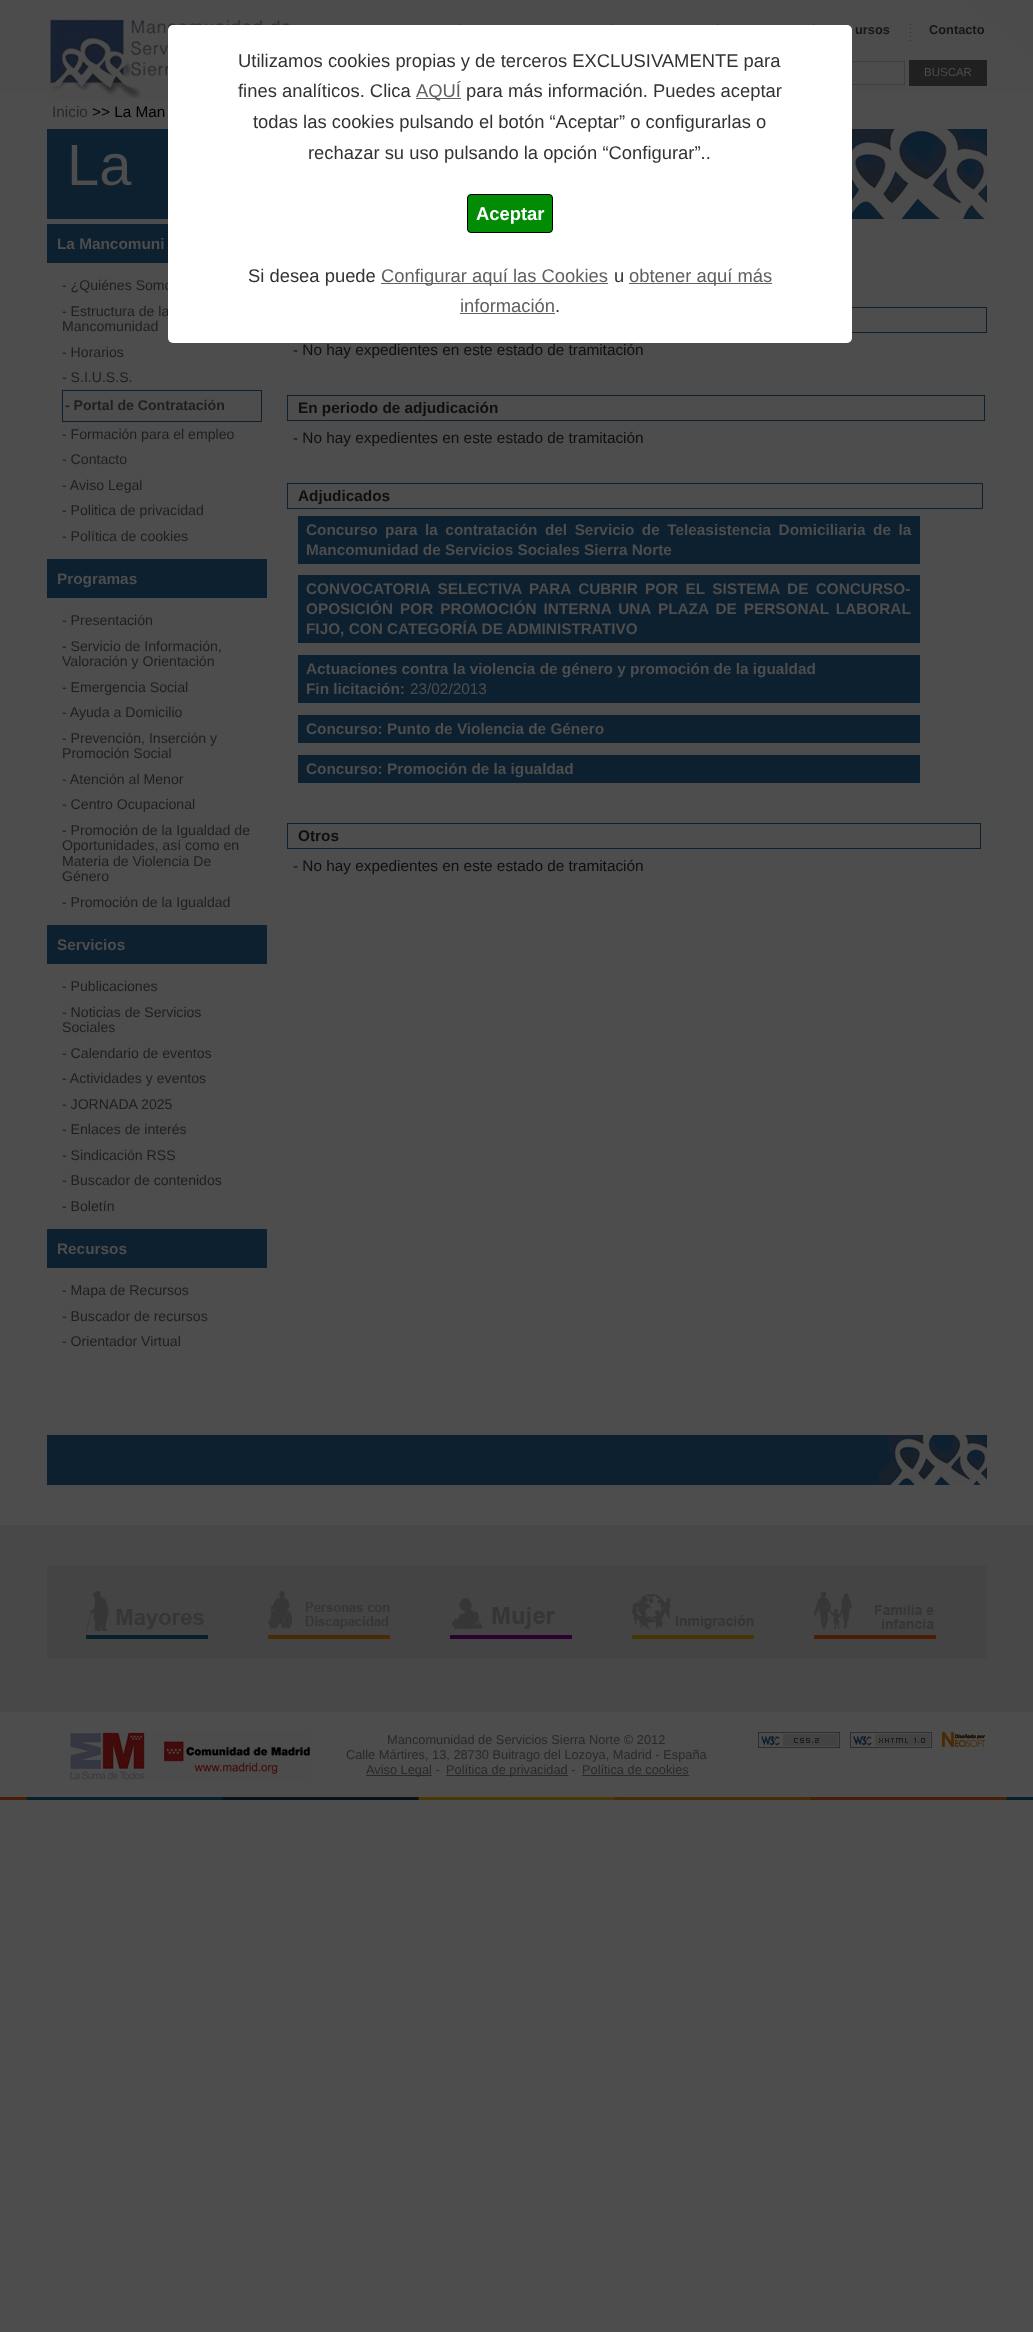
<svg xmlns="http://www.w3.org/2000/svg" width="1033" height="2332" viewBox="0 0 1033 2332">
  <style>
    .t1 { font: 14.1px Liberation Sans; fill: #1f1f1f; }
    .t2 { font: 18.4px Liberation Sans; fill: #333; }
    .t3 { font: 18.4px Liberation Sans; fill: #606060; }
    .t4 { font: bold 18.4px Liberation Sans; fill: #fff; }
    .t5 { font: bold 12.8px Liberation Sans; fill: #171717; }
    .t6 { font: 11.5px Liberation Sans; fill: #4d4d4d; }
    .t7 { font: 15.35px Liberation Sans; fill: #292929; }
    .t8 { font: 15.35px Liberation Sans; fill: #000; }
    .t9 { font: 58px Liberation Sans; fill: #4d4d4d; }
    .t10 { font: bold 15.35px Liberation Sans; fill: #4d4d4d; }
    .t11 { font: bold 14.1px Liberation Sans; fill: #1f1f1f; }
    .t12 { font: 15.35px Liberation Sans; fill: #0f0f0f; }
    .t13 { font: bold 15.35px Liberation Sans; fill: #0f0f0f; }
    .t14 { font: 15.35px Liberation Sans; fill: #4d4d4d; }
    .t15 { font: 12.8px Liberation Sans; fill: #292929; }
  </style>
  <rect width="100%" height="100%" fill="#4d4d4d"/>
  <image x="0" y="0" width="1033" height="93" href="images/1.png"/>
  <image x="49" y="19" width="264" height="80" href="images/2.png"/>
  <rect x="675.5" y="61.5" width="229" height="23" fill="none" stroke="#3e3e3e"/>
  <text x="62" y="290" class="t1">- ¿Quiénes Somo</text>
  <text x="62" y="316" class="t1">- Estructura de la</text>
  <rect x="287.5" y="307.5" width="699" height="25" fill="none" stroke="#0d2030"/>
  <rect x="168" y="25" width="684" height="318" rx="5" fill="#fff"/>
  <text x="238" y="67" class="t2">Utilizamos cookies propias y de terceros EXCLUSIVAMENTE para</text>
  <text x="238" y="97" class="t2">fines analíticos. Clica</text>
  <rect x="416" y="98" width="45" height="1" fill="#606060"/>
  <text x="416" y="97" class="t3">AQUÍ</text>
  <text x="466" y="97" class="t2">para más información. Puedes aceptar</text>
  <text x="253" y="128" class="t2">todas las cookies pulsando el botón “Aceptar” o configurarlas o</text>
  <text x="308" y="159" class="t2">rechazar su uso pulsando la opción “Configurar”..</text>
  <rect x="467.5" y="194.5" width="85" height="38" rx="3.5" fill="#028c05" stroke="#000"/>
  <text x="476" y="220" class="t4">Aceptar</text>
  <text x="248" y="282" class="t2">Si desea puede</text>
  <rect x="381" y="283" width="227" height="1" fill="#606060"/>
  <text x="381" y="282" class="t3">Configurar aquí las Cookies</text>
  <text x="614" y="282" class="t2">u</text>
  <rect x="629" y="283" width="143" height="1" fill="#606060"/>
  <text x="629" y="282" class="t3">obtener aquí más</text>
  <text x="460" y="312" class="t3">información</text>
  <rect x="460" y="313" width="95" height="1" fill="#606060"/>
  <text x="555" y="312" class="t2">.</text>
  <image x="460" y="24" width="1" height="1" href="images/3.png"/>
  <image x="611" y="24" width="1" height="1" href="images/3.png"/>
  <image x="717" y="24" width="1" height="1" href="images/3.png"/>
  <image x="813" y="24" width="1" height="1" href="images/3.png"/>
  <image x="910" y="24" width="1" height="17" href="images/4.png"/>
  <text x="855" y="34" class="t5">ursos</text>
  <text x="929" y="34" class="t5">Contacto</text>
  <rect x="909" y="60" width="78" height="26" fill="#202020"/>
  <text x="924" y="76" class="t6">BUSCAR</text>
  <text x="52" y="117" class="t7">Inicio</text>
  <text x="92" y="117" class="t8">&gt;&gt; La Man</text>
  <rect x="47" y="129" width="121" height="90" fill="#0d2030"/>
  <image x="852" y="129" width="135" height="90" href="images/5.png"/>
  <text x="67" y="185" class="t9">La</text>
  <rect x="47" y="224" width="121" height="39" fill="#0d2030"/>
  <text x="57" y="249" class="t10">La Mancomuni</text>
  <text x="62" y="331" class="t1">Mancomunidad</text>
  <text x="62" y="357" class="t1">- Horarios</text>
  <text x="62" y="382" class="t1">- S.I.U.S.S.</text>
  <rect x="62.5" y="390.5" width="199" height="31" fill="none" stroke="#0d2030"/>
  <text x="65" y="410" class="t11">- Portal de Contratación</text>
  <text x="62" y="439" class="t1">- Formación para el empleo</text>
  <text x="62" y="464" class="t1">- Contacto</text>
  <text x="62" y="490" class="t1">- Aviso Legal</text>
  <text x="62" y="515" class="t1">- Politica de privacidad</text>
  <text x="62" y="541" class="t1">- Política de cookies</text>
  <rect x="47" y="559" width="220" height="39" fill="#0d2030"/>
  <text x="57" y="584" class="t10">Programas</text>
  <text x="62" y="625" class="t1">- Presentación</text>
  <text x="62" y="651" class="t1">- Servicio de Información,</text>
  <text x="62" y="666" class="t1">Valoración y Orientación</text>
  <text x="62" y="692" class="t1">- Emergencia Social</text>
  <text x="62" y="717" class="t1">- Ayuda a Domicilio</text>
  <text x="62" y="743" class="t1">- Prevención, Inserción y</text>
  <text x="62" y="758" class="t1">Promoción Social</text>
  <text x="62" y="784" class="t1">- Atención al Menor</text>
  <text x="62" y="809" class="t1">- Centro Ocupacional</text>
  <text x="62" y="835" class="t1">- Promoción de la Igualdad de</text>
  <text x="62" y="850" class="t1">Oportunidades, así como en</text>
  <text x="62" y="866" class="t1">Materia de Violencia De</text>
  <text x="62" y="881" class="t1">Género</text>
  <text x="62" y="907" class="t1">- Promoción de la Igualdad</text>
  <rect x="47" y="925" width="220" height="39" fill="#0d2030"/>
  <text x="57" y="950" class="t10">Servicios</text>
  <text x="62" y="991" class="t1">- Publicaciones</text>
  <text x="62" y="1017" class="t1">- Noticias de Servicios</text>
  <text x="62" y="1032" class="t1">Sociales</text>
  <text x="62" y="1058" class="t1">- Calendario de eventos</text>
  <text x="62" y="1083" class="t1">- Actividades y eventos</text>
  <text x="62" y="1109" class="t1">- JORNADA 2025</text>
  <text x="62" y="1134" class="t1">- Enlaces de interés</text>
  <text x="62" y="1160" class="t1">- Sindicación RSS</text>
  <text x="62" y="1185" class="t1">- Buscador de contenidos</text>
  <text x="62" y="1211" class="t1">- Boletín</text>
  <rect x="47" y="1229" width="220" height="39" fill="#0d2030"/>
  <text x="57" y="1254" class="t10">Recursos</text>
  <text x="62" y="1295" class="t1">- Mapa de Recursos</text>
  <text x="62" y="1321" class="t1">- Buscador de recursos</text>
  <text x="62" y="1346" class="t1">- Orientador Virtual</text>
  <text x="293" y="355" class="t12">- No hay expedientes en este estado de tramitación</text>
  <rect x="287.5" y="395.5" width="697" height="25" fill="none" stroke="#0d2030"/>
  <text x="298" y="413" class="t13">En periodo de adjudicación</text>
  <text x="293" y="443" class="t12">- No hay expedientes en este estado de tramitación</text>
  <rect x="287.5" y="483.5" width="695" height="25" fill="none" stroke="#0d2030"/>
  <text x="298" y="501" class="t13">Adjudicados</text>
  <rect x="298" y="516" width="622" height="48" fill="#0d2030"/>
  <text x="306" y="535" word-spacing="3.25" class="t10">Concurso para la contratación del Servicio de Teleasistencia Domiciliaria de la</text>
  <text x="306" y="555" class="t10">Mancomunidad de Servicios Sociales Sierra Norte</text>
  <rect x="298" y="575" width="622" height="68" fill="#0d2030"/>
  <text x="306" y="594" word-spacing="3" class="t10">CONVOCATORIA SELECTIVA PARA CUBRIR POR EL SISTEMA DE CONCURSO-</text>
  <text x="306" y="614" word-spacing="2.75" class="t10">OPOSICIÓN POR PROMOCIÓN INTERNA UNA PLAZA DE PERSONAL LABORAL</text>
  <text x="306" y="634" class="t10">FIJO, CON CATEGORÍA DE ADMINISTRATIVO</text>
  <rect x="298" y="655" width="622" height="48" fill="#0d2030"/>
  <text x="306" y="674" class="t10">Actuaciones contra la violencia de género y promoción de la igualdad</text>
  <text x="306" y="694" class="t10">Fin licitación:</text>
  <text x="410" y="694" class="t14">23/02/2013</text>
  <rect x="298" y="715" width="622" height="28" fill="#0d2030"/>
  <text x="306" y="734" class="t10">Concurso: Punto de Violencia de Género</text>
  <rect x="298" y="755" width="622" height="28" fill="#0d2030"/>
  <text x="306" y="774" class="t10">Concurso: Promoción de la igualdad</text>
  <rect x="287.5" y="823.5" width="693" height="25" fill="none" stroke="#0d2030"/>
  <text x="298" y="841" class="t13">Otros</text>
  <text x="293" y="871" class="t12">- No hay expedientes en este estado de tramitación</text>
  <rect x="47" y="1435" width="832" height="50" fill="#0d2030"/>
  <image x="879" y="1435" width="108" height="50" href="images/6.png"/>
  <rect x="0" y="1525" width="1033" height="187" fill="#484848"/>
  <rect x="47" y="1565" width="940" height="94" fill="#444"/>
  <rect x="86" y="1635" width="122" height="4" fill="#05212c"/>
  <image x="86" y="1591" width="118" height="40" href="images/7.png"/>
  <rect x="268" y="1635" width="122" height="4" fill="#492a05"/>
  <image x="268" y="1591" width="122" height="38" href="images/8.png"/>
  <rect x="450" y="1635" width="122" height="4" fill="#2b0130"/>
  <image x="452" y="1598" width="103" height="31" href="images/9.png"/>
  <rect x="632" y="1635" width="122" height="4" fill="#473704"/>
  <image x="632" y="1594" width="122" height="35" href="images/10.png"/>
  <rect x="814" y="1635" width="122" height="4" fill="#491e05"/>
  <image x="814" y="1592" width="120" height="41" href="images/11.png"/>
  <image x="0" y="1797" width="1033" height="3" href="images/12.png"/>
  <image x="70" y="1732" width="240" height="48" href="images/13.png"/>
  <text x="387" y="1744" class="t15">Mancomunidad de Servicios Sierra Norte © 2012</text>
  <text x="346" y="1759" class="t15">Calle Mártires, 13, 28730 Buitrago del Lozoya, Madrid - España</text>
  <rect x="366" y="1775" width="66" height="1" fill="#292929"/>
  <text x="366" y="1774" class="t15">Aviso Legal -</text>
  <rect x="446" y="1775" width="122" height="1" fill="#292929"/>
  <text x="446" y="1774" class="t15">Política de privacidad -</text>
  <text x="582" y="1774" class="t15">Política de cookies</text>
  <rect x="582" y="1775" width="107" height="1" fill="#292929"/>
  <image x="758" y="1732" width="82" height="16" href="images/14.png"/>
  <image x="850" y="1732" width="82" height="16" href="images/15.png"/>
  <image x="942" y="1732" width="43" height="15" href="images/16.png"/>
</svg>
